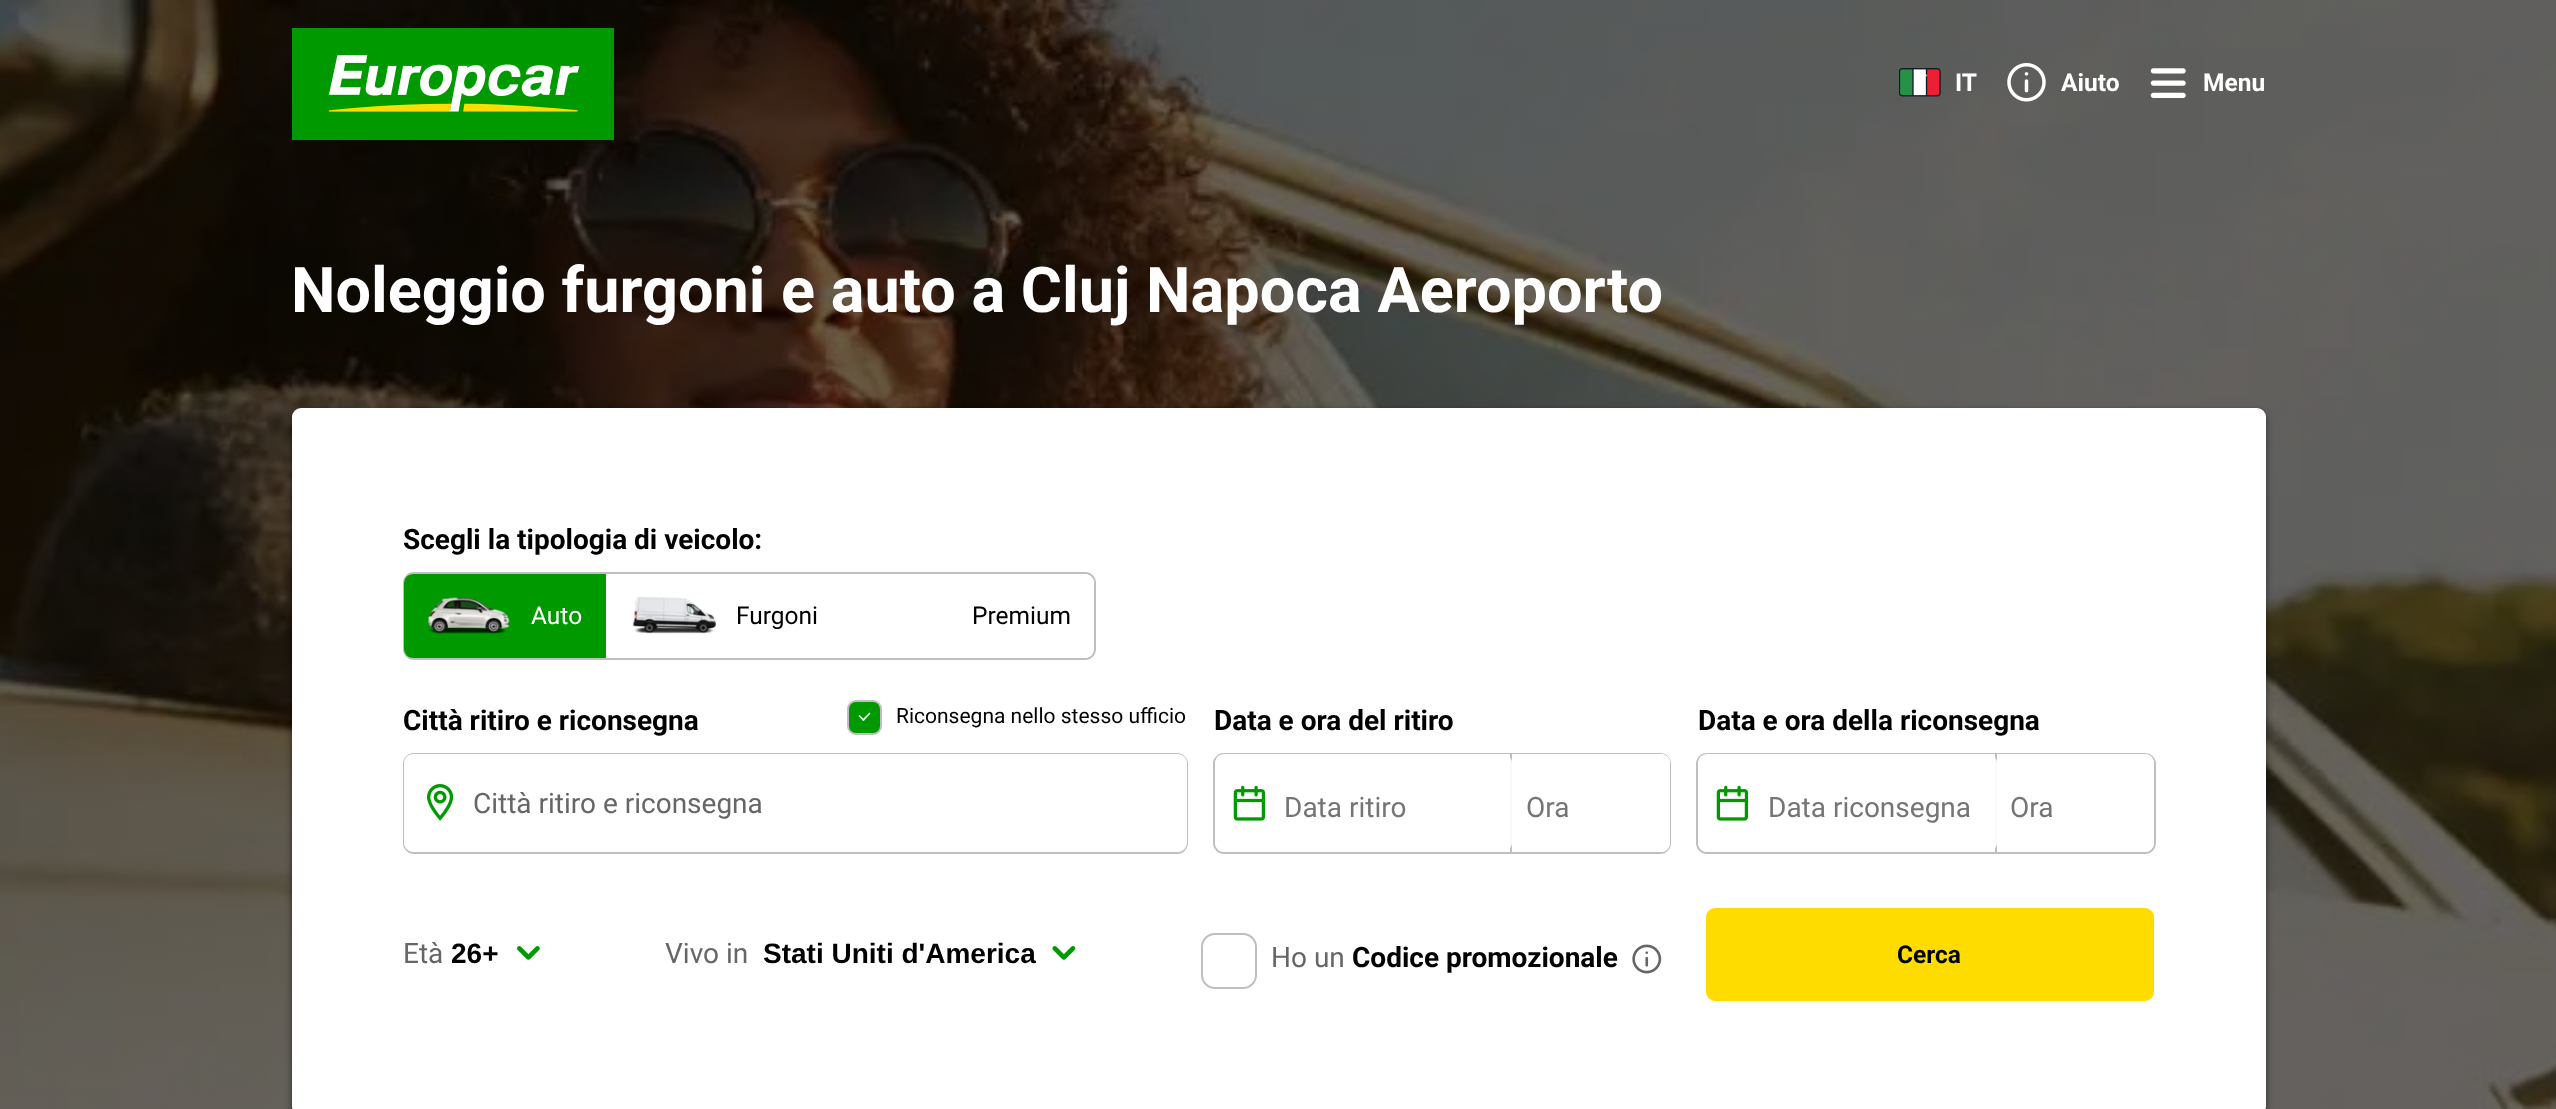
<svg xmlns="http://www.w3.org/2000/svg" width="2556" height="1109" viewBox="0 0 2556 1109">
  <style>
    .t1 { font: bold 24.5px Roboto; fill: #fff; }
    .t2 { font: bold 63px Roboto; fill: #fff; }
    .t3 { font: bold 28px Roboto; fill: #000; }
    .t4 { font: 24.5px Roboto; fill: #fff; }
    .t5 { font: 24.5px Roboto; fill: #000; }
    .t6 { font: 21px Roboto; fill: #000; }
    .t7 { font: 28px Roboto; fill: #666; }
    .t8 { font: 28px Roboto; fill: #757575; }
    .t9 { font: bold 28px Liberation Sans; fill: #000; }
    .t10 { font: bold 24.5px Roboto; fill: #000; }
  </style>
  <defs>
    <clipPath id="clip1"><rect x="452" y="938" width="49" height="30"/></clipPath>
  </defs>
  <rect width="100%" height="100%" fill="#fff"/>
  <image x="0" y="0" width="2556" height="1109" href="images/1.png"/>
  <image x="292" y="28" width="322" height="112" href="images/2.png"/>
  <image x="1899" y="68" width="42" height="29" href="images/3.png"/>
  <text x="1955" y="91" class="t1">IT</text>
  <image x="2007" y="63" width="39" height="39" href="images/4.png"/>
  <text x="2061" y="91" class="t1">Aiuto</text>
  <image x="2150" y="68" width="36" height="30" href="images/5.png"/>
  <text x="2203" y="91" class="t1">Menu</text>
  <text x="291" y="312" class="t2">Noleggio furgoni e auto a Cluj Napoca Aeroporto</text>
  <rect x="292" y="411" width="1974" height="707" rx="9" fill="#00000080" filter="blur(3.5px)"/>
  <rect x="292" y="408" width="1974" height="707" rx="9" fill="#fff"/>
  <text x="403" y="549" class="t3">Scegli la tipologia di veicolo:</text>
  <rect x="404" y="573" width="691" height="86" rx="10" fill="none" stroke="#bfbfbf" stroke-width="2"/>
  <path d="M413 575H605V657H413C408.5 657 405 653.5 405 649V583C405 578.5 408.5 575 413 575Z" fill="#090" stroke="#090" stroke-width="2"/>
  <image x="428" y="597" width="82" height="37" href="images/6.png"/>
  <text x="531" y="624" class="t4">Auto</text>
  <image x="632" y="596" width="84" height="38" href="images/7.png"/>
  <text x="736" y="624" class="t5">Furgoni</text>
  <path d="M845 574H1085C1090 574 1094 578 1094 583V649C1094 654 1090 658 1085 658H845Z" fill="#fff"/>
  <text x="972" y="624" class="t5">Premium</text>
  <text x="403" y="730" class="t3">Città ritiro e riconsegna</text>
  <rect x="848" y="701" width="33" height="33" rx="8" fill="#090" stroke="#bfbfbf" stroke-width="2"/>
  <path d="M869.5 712.5L870.5 713.5L863.5 721L862 720Z" fill="#fff"/>
  <path d="M859.5 715L864.5 720L863.5 721L858.5 716Z" fill="#fff"/>
  <text x="896" y="723" class="t6">Riconsegna nello stesso ufficio</text>
  <rect x="404" y="754" width="783" height="99" rx="10" fill="none" stroke="#bfbfbf" stroke-width="2"/>
  <rect x="405" y="755" width="781" height="96" rx="8" fill="none" stroke="#fff" stroke-width="2"/>
  <image x="427" y="784" width="27" height="37" href="images/8.png"/>
  <text x="473" y="813" class="t7">Città ritiro e riconsegna</text>
  <text x="1214" y="730" class="t3">Data e ora del ritiro</text>
  <path d="M1224 754H1513V853H1224C1218.5 853 1214 848.5 1214 843V764C1214 758.5 1218.5 754 1224 754Z" fill="none" stroke="#bfbfbf" stroke-width="2"/>
  <path d="M1224 755H1511V851H1224C1219.5 851 1216 847.5 1216 843V763C1216 758.5 1219.5 755 1224 755Z" fill="none" stroke="#fff" stroke-width="2"/>
  <image x="1233" y="785" width="33" height="36" href="images/9.png"/>
  <path d="M1511 754H1660C1665.5 754 1670 758.5 1670 764V843C1670 848.5 1665.5 853 1660 853H1511Z" fill="none" stroke="#bfbfbf" stroke-width="2"/>
  <rect x="1285" y="754" width="227" height="98" rx="9" fill="#ffffffe6"/>
  <text x="1284" y="817" class="t8">Data ritiro</text>
  <path d="M1513 755H1661C1665.5 755 1669 758.5 1669 763V843C1669 847.5 1665.5 851 1661 851H1513Z" fill="none" stroke="#fff" stroke-width="2"/>
  <rect x="1512" y="754" width="158" height="98" rx="9" fill="#ffffffe6"/>
  <text x="1526" y="817" class="t8">Ora</text>
  <text x="1698" y="730" class="t3">Data e ora della riconsegna</text>
  <path d="M1707 754H1998V853H1707C1701.5 853 1697 848.5 1697 843V764C1697 758.5 1701.5 754 1707 754Z" fill="none" stroke="#bfbfbf" stroke-width="2"/>
  <path d="M1707 755H1996V851H1707C1702.5 851 1699 847.5 1699 843V763C1699 758.5 1702.5 755 1707 755Z" fill="none" stroke="#fff" stroke-width="2"/>
  <image x="1716" y="785" width="33" height="36" href="images/9.png"/>
  <path d="M1996 754H2145C2150.5 754 2155 758.5 2155 764V843C2155 848.5 2150.5 853 2145 853H1996Z" fill="none" stroke="#bfbfbf" stroke-width="2"/>
  <rect x="1768" y="754" width="229" height="98" rx="9" fill="#ffffffe6"/>
  <text x="1768" y="817" class="t8">Data riconsegna</text>
  <path d="M1998 755H2145C2149.5 755 2153 758.5 2153 763V843C2153 847.5 2149.5 851 2145 851H1998Z" fill="none" stroke="#fff" stroke-width="2"/>
  <rect x="1997" y="754" width="157" height="98" rx="9" fill="#ffffffe6"/>
  <text x="2010" y="817" class="t8">Ora</text>
  <text x="403" y="963" class="t7">Età</text>
  <g clip-path="url(#clip1)">
    <text x="451" y="963" class="t9">26+</text>
  </g>
  <image x="517" y="946" width="23" height="14" href="images/10.png"/>
  <text x="665" y="963" class="t7">Vivo in</text>
  <text x="763" y="963" class="t9">Stati Uniti d'America</text>
  <image x="1052" y="946" width="24" height="14" href="images/11.png"/>
  <rect x="1202" y="934" width="54" height="54" rx="13" fill="none" stroke="#bfbfbf" stroke-width="2"/>
  <text x="1271" y="967" class="t7">Ho un</text>
  <text x="1352" y="967" class="t3">Codice promozionale</text>
  <image x="1632" y="944" width="30" height="30" href="images/12.png"/>
  <rect x="1706" y="908" width="448" height="93" rx="9" fill="#ffdc00"/>
  <text x="1897" y="963" class="t10">Cerca</text>
</svg>
